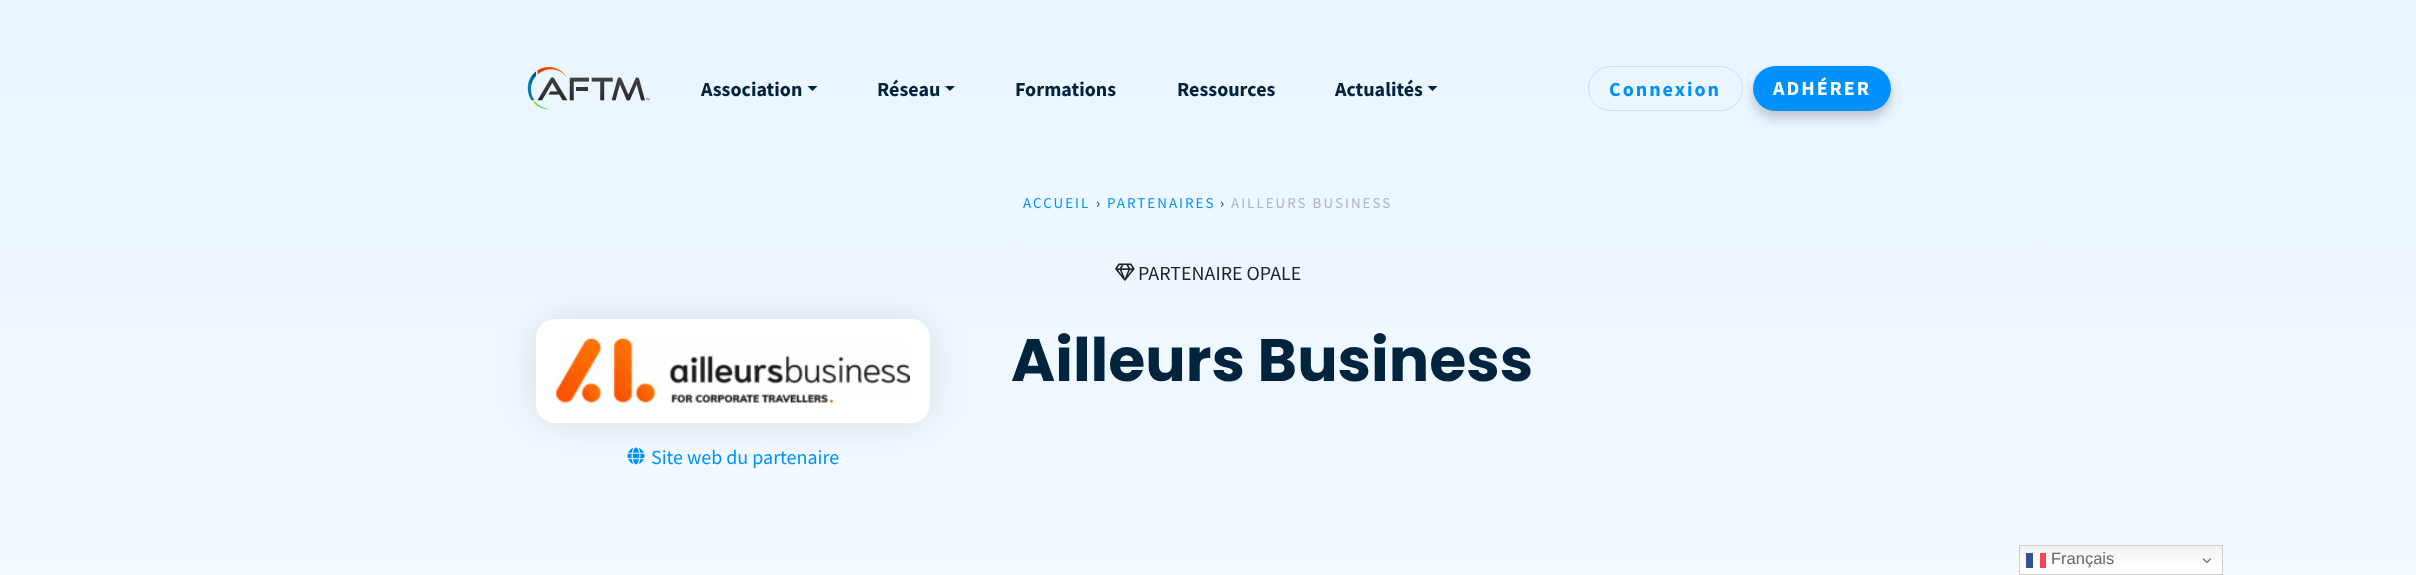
<svg xmlns="http://www.w3.org/2000/svg" width="2416" height="575" viewBox="0 0 2416 575">
  <style>
    .t1 { font: bold 20px Source Sans Pro; fill: #00243d; }
    .t2 { font: bold 20px Source Sans Pro; letter-spacing: 2px; fill: #0091ff; }
    .t3 { font: bold 20px Source Sans Pro; letter-spacing: 2px; fill: #fff; }
    .t4 { font: 15px Source Sans Pro; letter-spacing: 2px; fill: #0091ff; }
    .t5 { font: 15px Source Sans Pro; letter-spacing: 2px; fill: #212529; }
    .t6 { font: 15px Source Sans Pro; letter-spacing: 2px; fill: #adb5bd; }
    .t7 { font: 20px Source Sans Pro; fill: #212529; }
    .t8 { font: bold 60px Poppins; fill: #00243d; }
    .t9 { font: 20px Source Sans Pro; fill: #0091ff; }
    .t10 { font: 16.5px Liberation Sans; fill: #666; }
  </style>
  <defs>
    <linearGradient id="g1" gradientUnits="userSpaceOnUse" x1="1208" y1="0" x2="1208" y2="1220"><stop offset="0" stop-color="#e9f5ff"/><stop offset="1" stop-color="#fff"/></linearGradient>
    <linearGradient id="g2" gradientUnits="userSpaceOnUse" x1="2121" y1="545" x2="2121" y2="575"><stop offset="0" stop-color="#efefef"/><stop offset="0.7" stop-color="#fff"/></linearGradient>
    <linearGradient id="g3" gradientUnits="userSpaceOnUse" x1="2121" y1="545" x2="2121" y2="575"><stop offset="0" stop-color="#fcfcfc"/><stop offset="0.7" stop-color="#fff"/></linearGradient>
  </defs>
  <rect width="100%" height="100%" fill="#fff"/>
  <rect x="0" y="0" width="2416" height="575" fill="url(#g1)"/>
  <image x="527" y="67" width="123" height="43" href="images/1.png"/>
  <text x="701" y="96" class="t1">Association</text>
  <path d="M807.5 86H817.5L812.5 91Z" fill="#00243d"/>
  <text x="877" y="96" class="t1">Réseau</text>
  <path d="M945 86H955L950 91Z" fill="#00243d"/>
  <text x="1015" y="96" class="t1">Formations</text>
  <text x="1177" y="96" class="t1">Ressources</text>
  <text x="1335" y="96" class="t1">Actualités</text>
  <path d="M1427.5 86H1437.5L1432.5 91Z" fill="#00243d"/>
  <rect x="1588.5" y="66.5" width="154" height="44" rx="22" fill="none" stroke="#ccdeea"/>
  <text x="1609" y="96" class="t2">Connexion</text>
  <rect x="1753" y="73" width="138" height="45" rx="22.5" fill="#00000033" filter="blur(6px)"/>
  <rect x="1753" y="66" width="138" height="45" rx="22.5" fill="#0091ff"/>
  <text x="1773" y="95" class="t3">ADHÉRER</text>
  <text x="1023" y="208" class="t4">ACCUEIL</text>
  <text x="1096" y="208" class="t5">›</text>
  <text x="1107" y="208" class="t4">PARTENAIRES</text>
  <text x="1220" y="208" class="t5">›</text>
  <text x="1231" y="208" class="t6">AILLEURS BUSINESS</text>
  <image x="1115" y="263" width="20" height="18" href="images/2.png"/>
  <text x="1138" y="280" class="t7">PARTENAIRE OPALE</text>
  <text x="1011" y="381" class="t8">Ailleurs Business</text>
  <rect x="536" y="319" width="394" height="104" rx="19" fill="#0000001a" filter="blur(19px)"/>
  <rect x="536" y="319" width="394" height="104" rx="19" fill="#fff"/>
  <image x="556" y="338" width="354" height="65" href="images/3.png"/>
  <image x="627" y="447" width="18" height="18" href="images/4.png"/>
  <text x="651" y="464" class="t9">Site web du partenaire</text>
  <rect x="2020" y="546" width="202" height="28" fill="url(#g2)"/>
  <rect x="2033" y="553" width="7" height="15" fill="url(#g3)"/>
  <rect x="2019.5" y="545.5" width="203" height="29" fill="none" stroke="#ccc"/>
  <rect x="2026" y="553" width="7" height="15" fill="#335198"/>
  <rect x="2040" y="553" width="6" height="15" fill="#f54659"/>
  <text x="2051" y="564" class="t10">Français</text>
  <image x="2203" y="558" width="8" height="6" href="images/5.png"/>
</svg>
